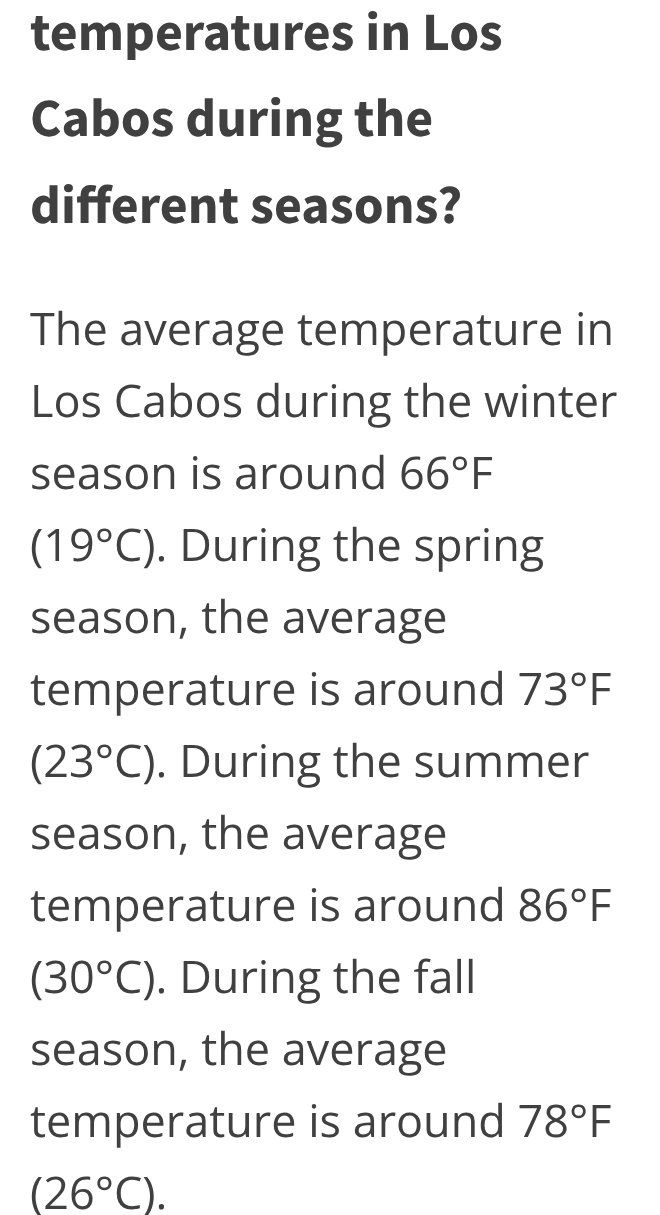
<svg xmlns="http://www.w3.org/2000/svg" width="660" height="1215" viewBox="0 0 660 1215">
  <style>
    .t1 { font: bold 54px Source Sans Pro; fill: #404040; }
    .t2 { font: 45px Open Sans; fill: #404040; }
  </style>
  <rect width="100%" height="100%" fill="#fff"/>
  <text x="30" y="50" class="t1">temperatures in Los</text>
  <text x="30" y="136" class="t1">Cabos during the</text>
  <text x="30" y="223" class="t1">different seasons?</text>
  <text x="30" y="345" class="t2">The average temperature in</text>
  <text x="30" y="417" class="t2">Los Cabos during the winter</text>
  <text x="30" y="489" class="t2">season is around 66°F</text>
  <text x="30" y="561" class="t2">(19°C). During the spring</text>
  <text x="30" y="633" class="t2">season, the average</text>
  <text x="30" y="705" class="t2">temperature is around 73°F</text>
  <text x="30" y="777" class="t2">(23°C). During the summer</text>
  <text x="30" y="849" class="t2">season, the average</text>
  <text x="30" y="921" class="t2">temperature is around 86°F</text>
  <text x="30" y="993" class="t2">(30°C). During the fall</text>
  <text x="30" y="1065" class="t2">season, the average</text>
  <text x="30" y="1137" class="t2">temperature is around 78°F</text>
  <text x="30" y="1209" class="t2">(26°C).</text>
</svg>
